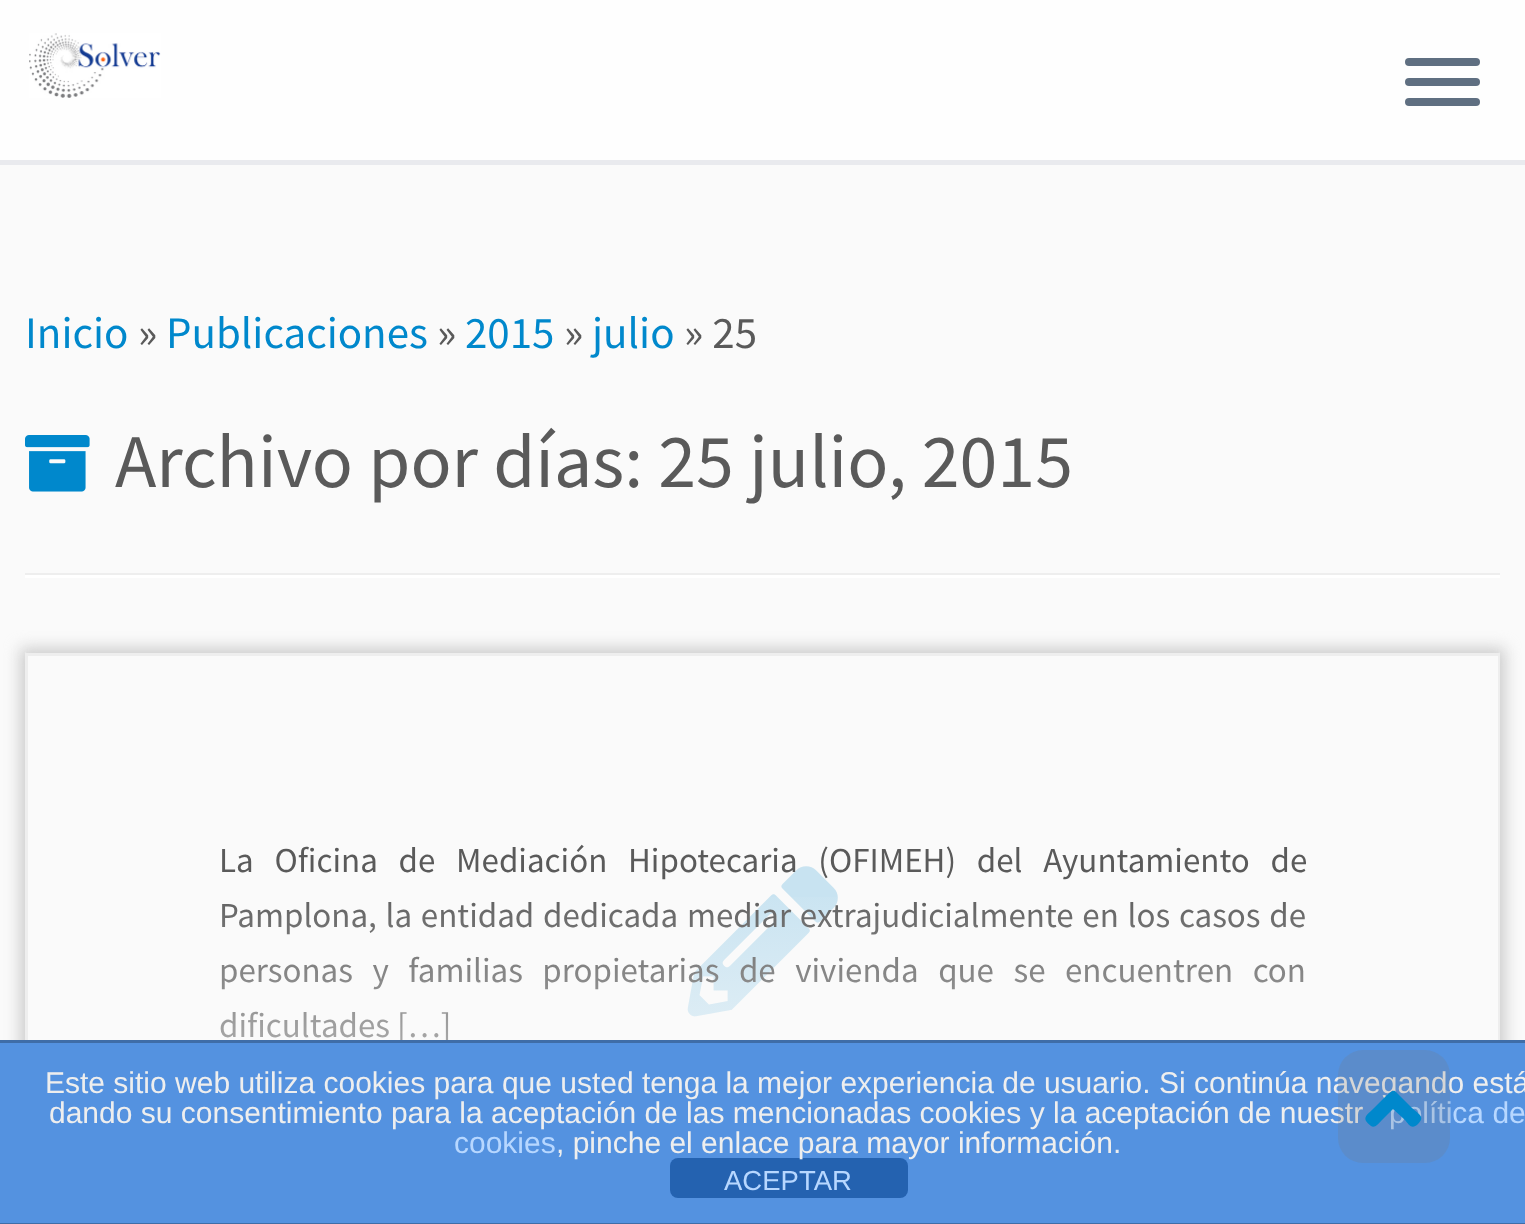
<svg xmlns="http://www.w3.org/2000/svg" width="1525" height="1224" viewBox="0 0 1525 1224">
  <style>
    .t1 { font: 45px Source Sans Pro; fill: #08c; }
    .t2 { font: 45px Source Sans Pro; fill: #5a5a5a; }
    .t3 { font: 76px Source Sans Pro; fill: #5a5a5a; }
    .t4 { font: 35px Source Sans Pro; fill: #5a5a5a; }
    .t5 { font: 30px Liberation Sans; fill: #eee; }
    .t6 { font: 30px Liberation Sans; fill: #b7d7ff; }
    .t7 { font: 27.5px Liberation Sans; fill: #b7d7ff; }
  </style>
  <defs>
    <clipPath id="clip1"><path d="M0 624H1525V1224H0ZM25 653H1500V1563H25Z" clip-rule="evenodd"/></clipPath>
    <linearGradient id="g1" gradientUnits="userSpaceOnUse" x1="763" y1="880" x2="763" y2="1218"><stop offset="0" stop-color="#fafafa" stop-opacity="0"/><stop offset="1" stop-color="#fafafa"/></linearGradient>
  </defs>
  <rect width="100%" height="100%" fill="#fafafa"/>
  <rect x="0" y="0" width="1525" height="160" fill="#fefefe"/>
  <rect x="0" y="160" width="1525" height="5" fill="#e9eaee"/>
  <image x="29" y="33" width="132" height="65" href="images/1.png"/>
  <rect x="1405" y="58" width="75" height="8" rx="4" fill="#5f6f81"/>
  <rect x="1405" y="78" width="75" height="8" rx="4" fill="#5f6f81"/>
  <rect x="1405" y="98" width="75" height="8" rx="4" fill="#5f6f81"/>
  <text x="25" y="348" class="t1">Inicio</text>
  <text x="138" y="348" class="t2">»</text>
  <text x="166" y="348" class="t1">Publicaciones</text>
  <text x="437" y="348" class="t2">»</text>
  <text x="465" y="348" class="t1">2015</text>
  <text x="564" y="348" class="t2">»</text>
  <text x="592" y="348" class="t1">julio</text>
  <text x="684" y="348" class="t2">» 25</text>
  <image x="25" y="435" width="65" height="57" href="images/2.png"/>
  <text x="115" y="487" class="t3">Archivo por días: 25 julio, 2015</text>
  <rect x="25" y="573" width="1475" height="2" fill="#eee"/>
  <rect x="25" y="575" width="1475" height="3" fill="#fff"/>
  <g clip-path="url(#clip1)">
    <rect x="20" y="648" width="1485" height="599" fill="#ccc" filter="blur(7.5px)"/>
  </g>
  <rect x="25" y="653" width="1475" height="3" fill="#eee"/>
  <path d="M1500 652V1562L1498 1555V655Z" fill="#eee"/>
  <path d="M25 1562V652L28 655V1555Z" fill="#eee"/>
  <image x="687" y="866" width="151" height="151" href="images/3.png"/>
  <text x="219" y="872" word-spacing="13.75" class="t4">La Oficina de Mediación Hipotecaria (OFIMEH) del Ayuntamiento de</text>
  <text x="219" y="927" word-spacing="1.75" class="t4">Pamplona, la entidad dedicada mediar extrajudicialmente en los casos de</text>
  <text x="219" y="982" word-spacing="12.5" class="t4">personas y familias propietarias de vivienda que se encuentren con</text>
  <text x="219" y="1037" class="t4">dificultades […]</text>
  <rect x="220" y="897" width="1085" height="143" fill="url(#g1)"/>
  <rect x="0" y="1043" width="1525" height="180" fill="#5492e0"/>
  <text x="45" y="1093" class="t5">Este sitio web utiliza cookies para que usted tenga la mejor experiencia de usuario. Si continúa navegando está</text>
  <text x="49" y="1123" class="t5">dando su consentimiento para la aceptación de las mencionadas cookies y la aceptación de nuestr</text>
  <text x="1389" y="1123" class="t6">política de</text>
  <rect x="1338" y="1050" width="112" height="113" rx="25" fill="#77777733"/>
  <path d="M1396 1092L1412 1108C1420 1115 1425 1117 1418 1124C1412 1130 1409 1125 1405 1120L1393 1109L1382 1120C1380 1122 1375 1129 1371 1126C1361 1118 1366 1116 1374 1108L1386 1096C1389 1094 1393 1088 1396 1092Z" fill="#08c"/>
  <rect x="0" y="1040" width="1525" height="3" fill="#3f6da7"/>
  <rect x="0" y="1223" width="1525" height="1" fill="#3f6da7"/>
  <text x="454" y="1153" class="t6">cookies</text>
  <rect x="670" y="1158" width="238" height="40" rx="8" fill="#2462b0"/>
  <text x="556" y="1153" class="t5">, pinche el enlace para mayor información.</text>
  <text x="724" y="1190" class="t7">ACEPTAR</text>
</svg>
